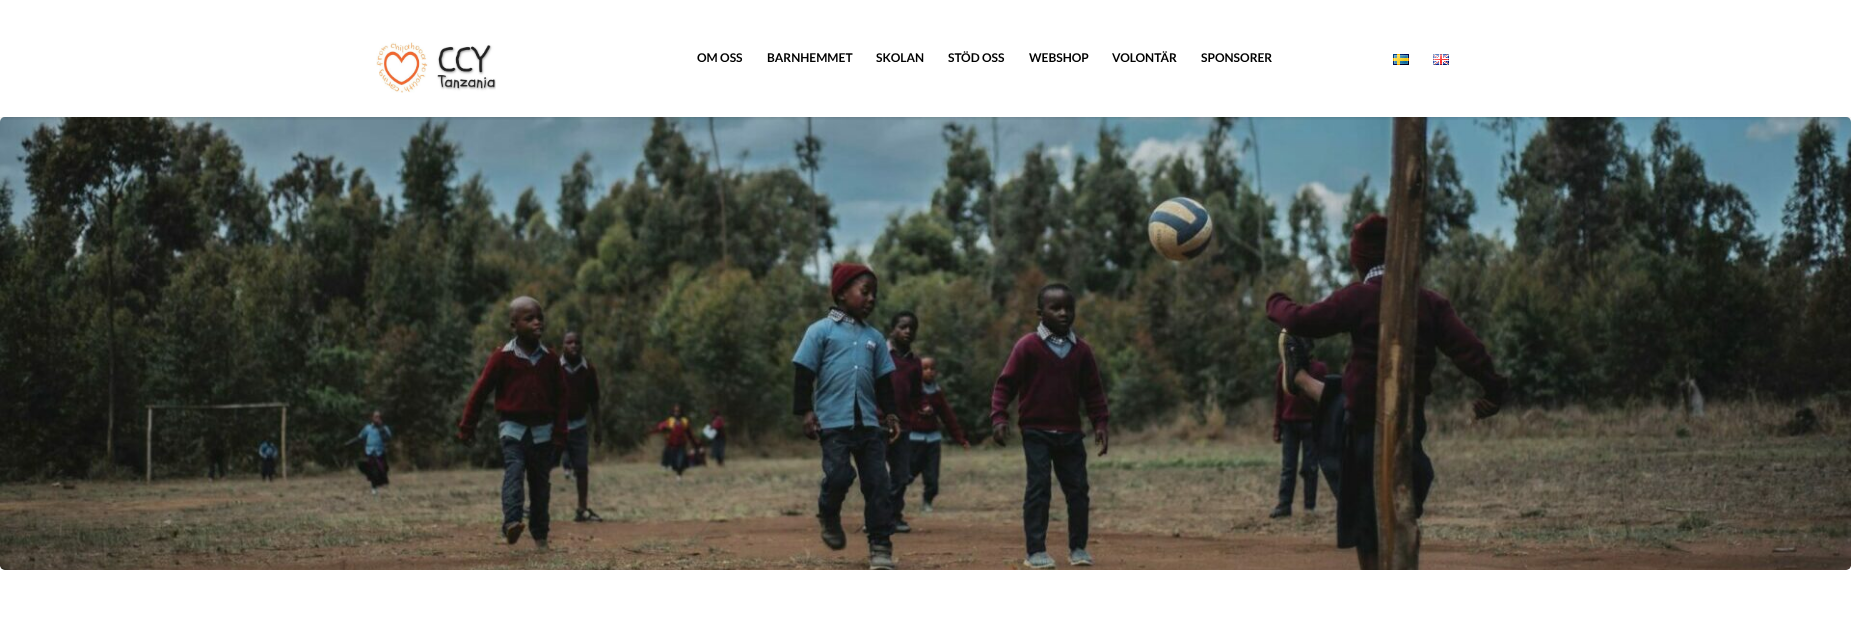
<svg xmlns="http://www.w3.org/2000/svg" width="1851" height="629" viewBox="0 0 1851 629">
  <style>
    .t1 { font: bold 12px Lato; fill: #010101; }
  </style>
  <defs>
    <clipPath id="clip1"><rect x="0" y="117" width="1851" height="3"/></clipPath>
  </defs>
  <rect width="100%" height="100%" fill="#fff"/>
  <image x="0" y="117" width="1851" height="453" href="images/4.png"/>
  <g clip-path="url(#clip1)">
    <rect x="0" y="0" width="1851" height="117" fill="#00000033" filter="blur(2.5px)"/>
  </g>
  <image x="376" y="42" width="120" height="51" href="images/1.png"/>
  <text x="697" y="62" class="t1">OM OSS</text>
  <text x="767" y="62" class="t1">BARNHEMMET</text>
  <text x="876" y="62" class="t1">SKOLAN</text>
  <text x="948" y="62" class="t1">STÖD OSS</text>
  <text x="1029" y="62" class="t1">WEBSHOP</text>
  <text x="1112" y="62" class="t1">VOLONTÄR</text>
  <text x="1201" y="62" class="t1">SPONSORER</text>
  <image x="1393" y="54" width="16" height="11" href="images/2.png"/>
  <image x="1433" y="54" width="16" height="11" href="images/3.png"/>
</svg>
